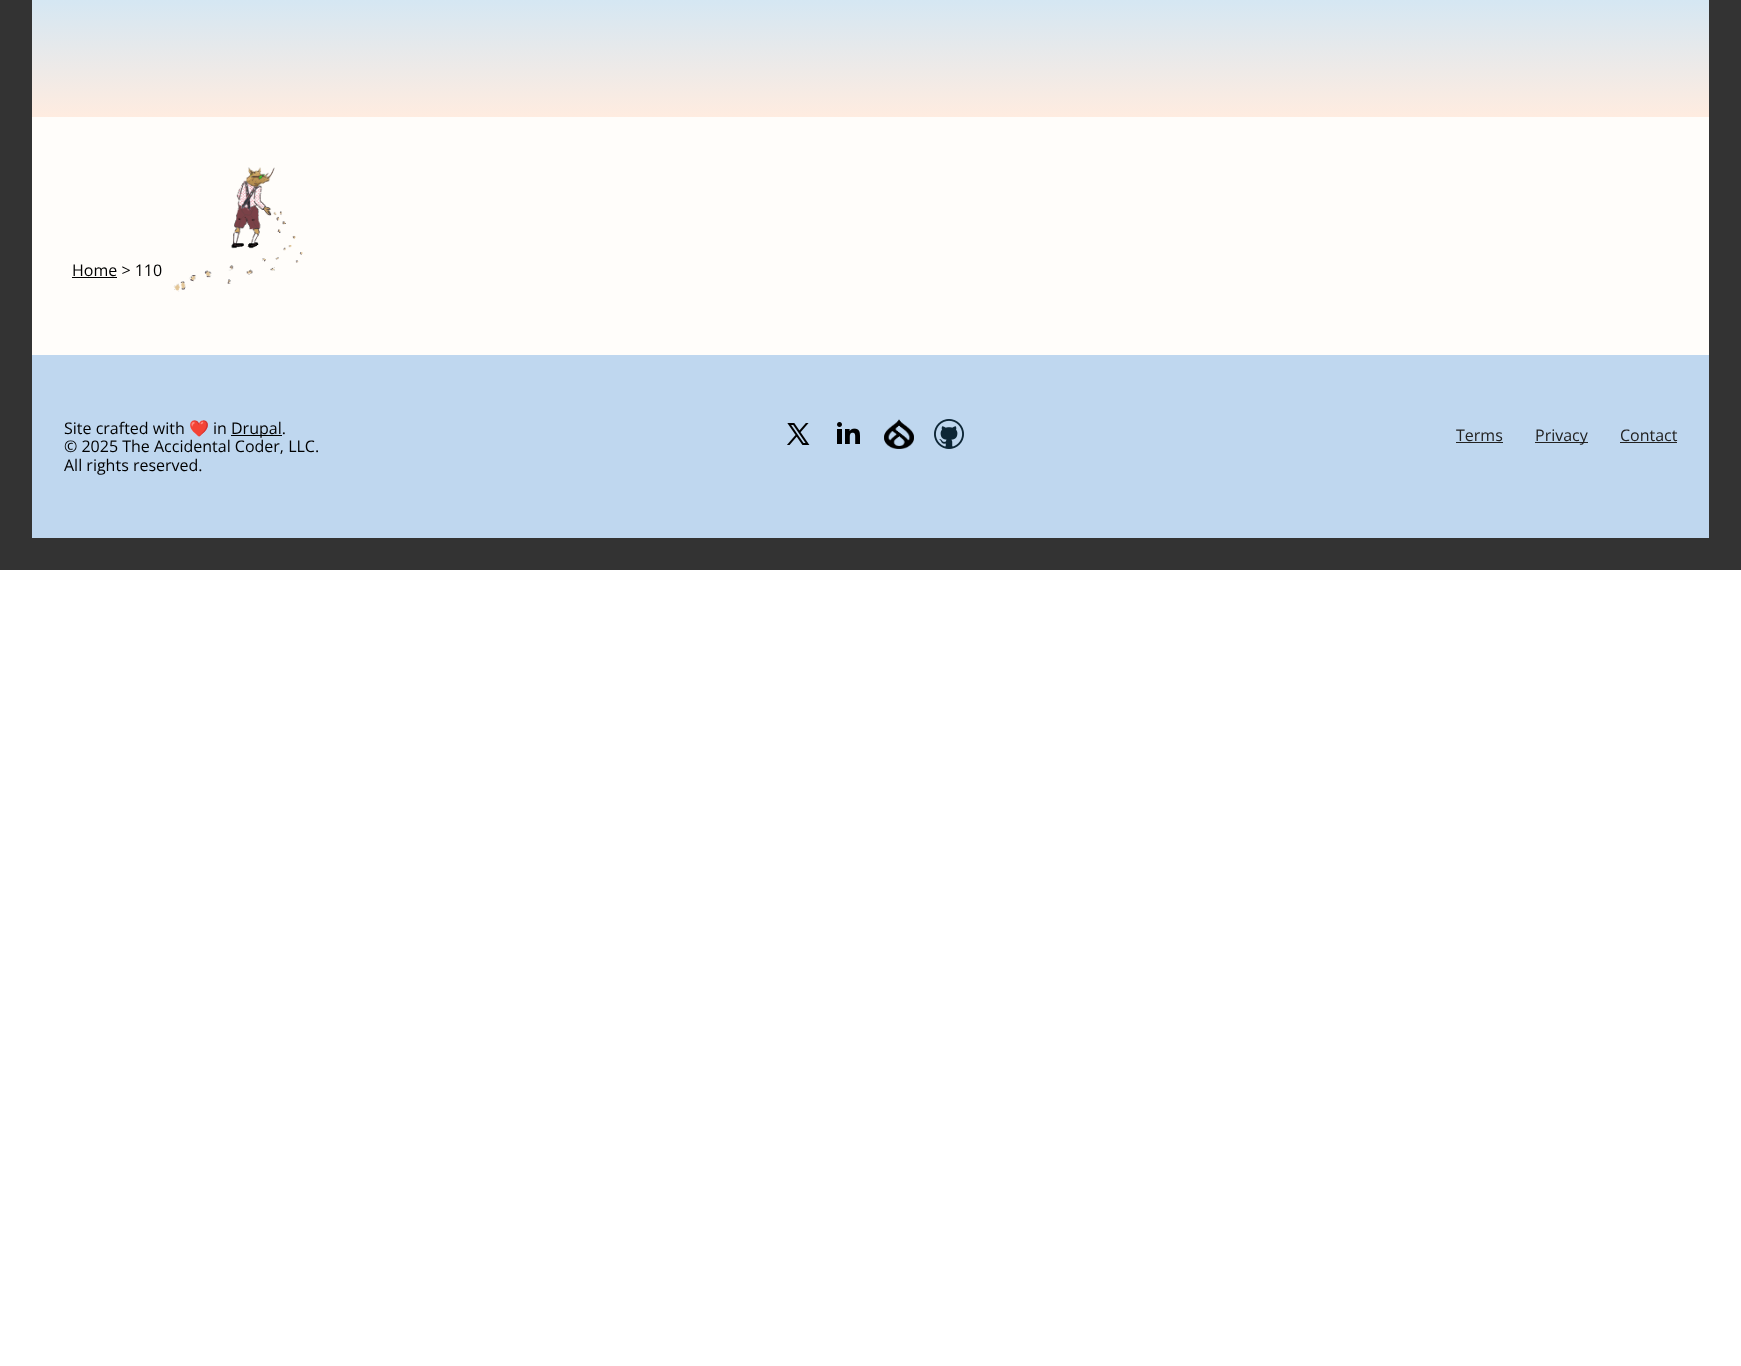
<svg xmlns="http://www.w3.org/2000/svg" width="1741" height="1366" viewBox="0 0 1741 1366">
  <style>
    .t1 { font: 16px Open Sans; fill: #000; }
    .t2 { font: 16px Noto Color Emoji; fill: #000; }
    .t3 { font: 16px Open Sans; fill: #222; }
  </style>
  <defs>
    <linearGradient id="g1" gradientUnits="userSpaceOnUse" x1="871" y1="0" x2="871" y2="117"><stop offset="0" stop-color="#d5e7f3"/><stop offset="1" stop-color="#ffece0"/></linearGradient>
  </defs>
  <rect width="100%" height="100%" fill="#fff"/>
  <rect x="1709" y="0" width="32" height="538" fill="#333"/>
  <rect x="32" y="538" width="1709" height="32" fill="#333"/>
  <rect x="0" y="0" width="32" height="570" fill="#333"/>
  <rect x="32" y="0" width="1677" height="117" fill="url(#g1)"/>
  <rect x="32" y="117" width="1677" height="238" fill="#fffdfa"/>
  <text x="72" y="276" class="t1">Home &gt; 110</text>
  <rect x="72" y="277" width="45" height="1" fill="#000"/>
  <image x="173" y="167" width="130" height="125" href="images/1.png"/>
  <rect x="32" y="355" width="1677" height="183" fill="#bfd7ef"/>
  <text x="64" y="434" class="t1">Site crafted with</text>
  <text x="189" y="434" class="t2">❤️</text>
  <text x="213" y="434" class="t1">in</text>
  <rect x="231" y="435" width="51" height="1" fill="#000"/>
  <text x="231" y="434" class="t1">Drupal.</text>
  <text x="64" y="452" class="t1">© 2025 The Accidental Coder, LLC.</text>
  <text x="64" y="471" class="t1">All rights reserved.</text>
  <image x="787" y="423" width="23" height="22" href="images/2.png"/>
  <image x="837" y="422" width="23" height="22" href="images/3.png"/>
  <image x="884" y="419" width="30" height="30" href="images/4.png"/>
  <image x="934" y="419" width="30" height="30" href="images/5.png"/>
  <text x="1456" y="441" class="t3">Terms</text>
  <rect x="1456" y="442" width="47" height="1" fill="#222"/>
  <rect x="1535" y="442" width="53" height="1" fill="#222"/>
  <text x="1535" y="441" class="t3">Privacy</text>
  <text x="1620" y="441" class="t3">Contact</text>
  <rect x="1620" y="442" width="57" height="1" fill="#222"/>
</svg>
